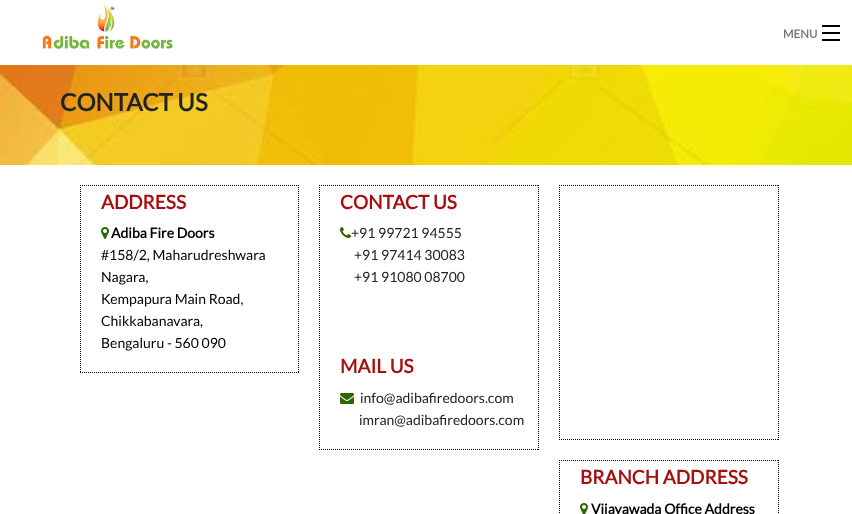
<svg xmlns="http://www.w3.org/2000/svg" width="852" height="514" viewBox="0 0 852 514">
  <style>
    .t1 { font: bold 11.5px Lato; fill: #777; }
    .t2 { font: bold 24px Lato; fill: #222; }
    .t3 { font: bold 19px Lato; fill: #a70e0e; }
    .t4 { font: bold 14px Lato; fill: #000; }
    .t5 { font: 14px Lato; fill: #000; }
    .t6 { font: 14px Lato; fill: #222; }
  </style>
  <rect width="100%" height="100%" fill="#fff"/>
  <image x="42" y="5" width="131" height="44" href="images/1.png"/>
  <text x="783" y="38" class="t1">MENU</text>
  <rect x="822" y="39" width="18" height="2" fill="#000"/>
  <rect x="822" y="32" width="18" height="2" fill="#000"/>
  <rect x="822" y="25" width="18" height="2" fill="#000"/>
  <image x="0" y="65" width="852" height="100" href="images/2.png"/>
  <text x="60" y="111" class="t2">CONTACT US</text>
  <path d="M80 185.5H299" fill="none" stroke="#000" stroke-dasharray="1 1"/>
  <path d="M298.5 185V373" fill="none" stroke="#000" stroke-dasharray="1 1"/>
  <path d="M80 372.5H299" fill="none" stroke="#000" stroke-dasharray="1 1"/>
  <path d="M80.5 185V373" fill="none" stroke="#000" stroke-dasharray="1 1"/>
  <text x="101" y="209" class="t3">ADDRESS</text>
  <image x="101" y="227" width="8" height="12" href="images/3.png"/>
  <text x="111" y="238" class="t4">Adiba Fire Doors</text>
  <text x="101" y="260" class="t5">#158/2, Maharudreshwara</text>
  <text x="101" y="282" class="t5">Nagara,</text>
  <text x="101" y="304" class="t5">Kempapura Main Road,</text>
  <text x="101" y="326" class="t5">Chikkabanavara,</text>
  <text x="101" y="348" class="t5">Bengaluru - 560 090</text>
  <path d="M319 185.5H539" fill="none" stroke="#000" stroke-dasharray="1 1"/>
  <path d="M538.5 185V450" fill="none" stroke="#000" stroke-dasharray="1 1"/>
  <path d="M319 449.5H539" fill="none" stroke="#000" stroke-dasharray="1 1"/>
  <path d="M319.5 185V450" fill="none" stroke="#000" stroke-dasharray="1 1"/>
  <text x="340" y="209" class="t3">CONTACT US</text>
  <image x="340" y="227" width="11" height="11" href="images/4.png"/>
  <text x="351" y="238" class="t6">+91 99721 94555</text>
  <text x="354" y="260" class="t6">+91 97414 30083</text>
  <text x="354" y="282" class="t6">+91 91080 08700</text>
  <text x="340" y="373" class="t3">MAIL US</text>
  <image x="340" y="393" width="14" height="11" href="images/5.png"/>
  <text x="360" y="403" class="t6">info@adibafiredoors.com</text>
  <text x="359" y="425" class="t6">imran@adibafiredoors.com</text>
  <path d="M559 185.5H779" fill="none" stroke="#000" stroke-dasharray="1 1"/>
  <path d="M778.5 185V440" fill="none" stroke="#000" stroke-dasharray="1 1"/>
  <path d="M559 439.5H779" fill="none" stroke="#000" stroke-dasharray="1 1"/>
  <path d="M559.5 185V440" fill="none" stroke="#000" stroke-dasharray="1 1"/>
  <path d="M559 460.5H779" fill="none" stroke="#000" stroke-dasharray="1 1"/>
  <path d="M778.5 460V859" fill="none" stroke="#000" stroke-dasharray="1 1"/>
  <path d="M559.5 460V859" fill="none" stroke="#000" stroke-dasharray="1 1"/>
  <text x="580" y="484" class="t3">BRANCH ADDRESS</text>
  <image x="580" y="503" width="8" height="11" href="images/6.png"/>
  <text x="591" y="514" class="t4">Vijayawada Office Address</text>
</svg>
